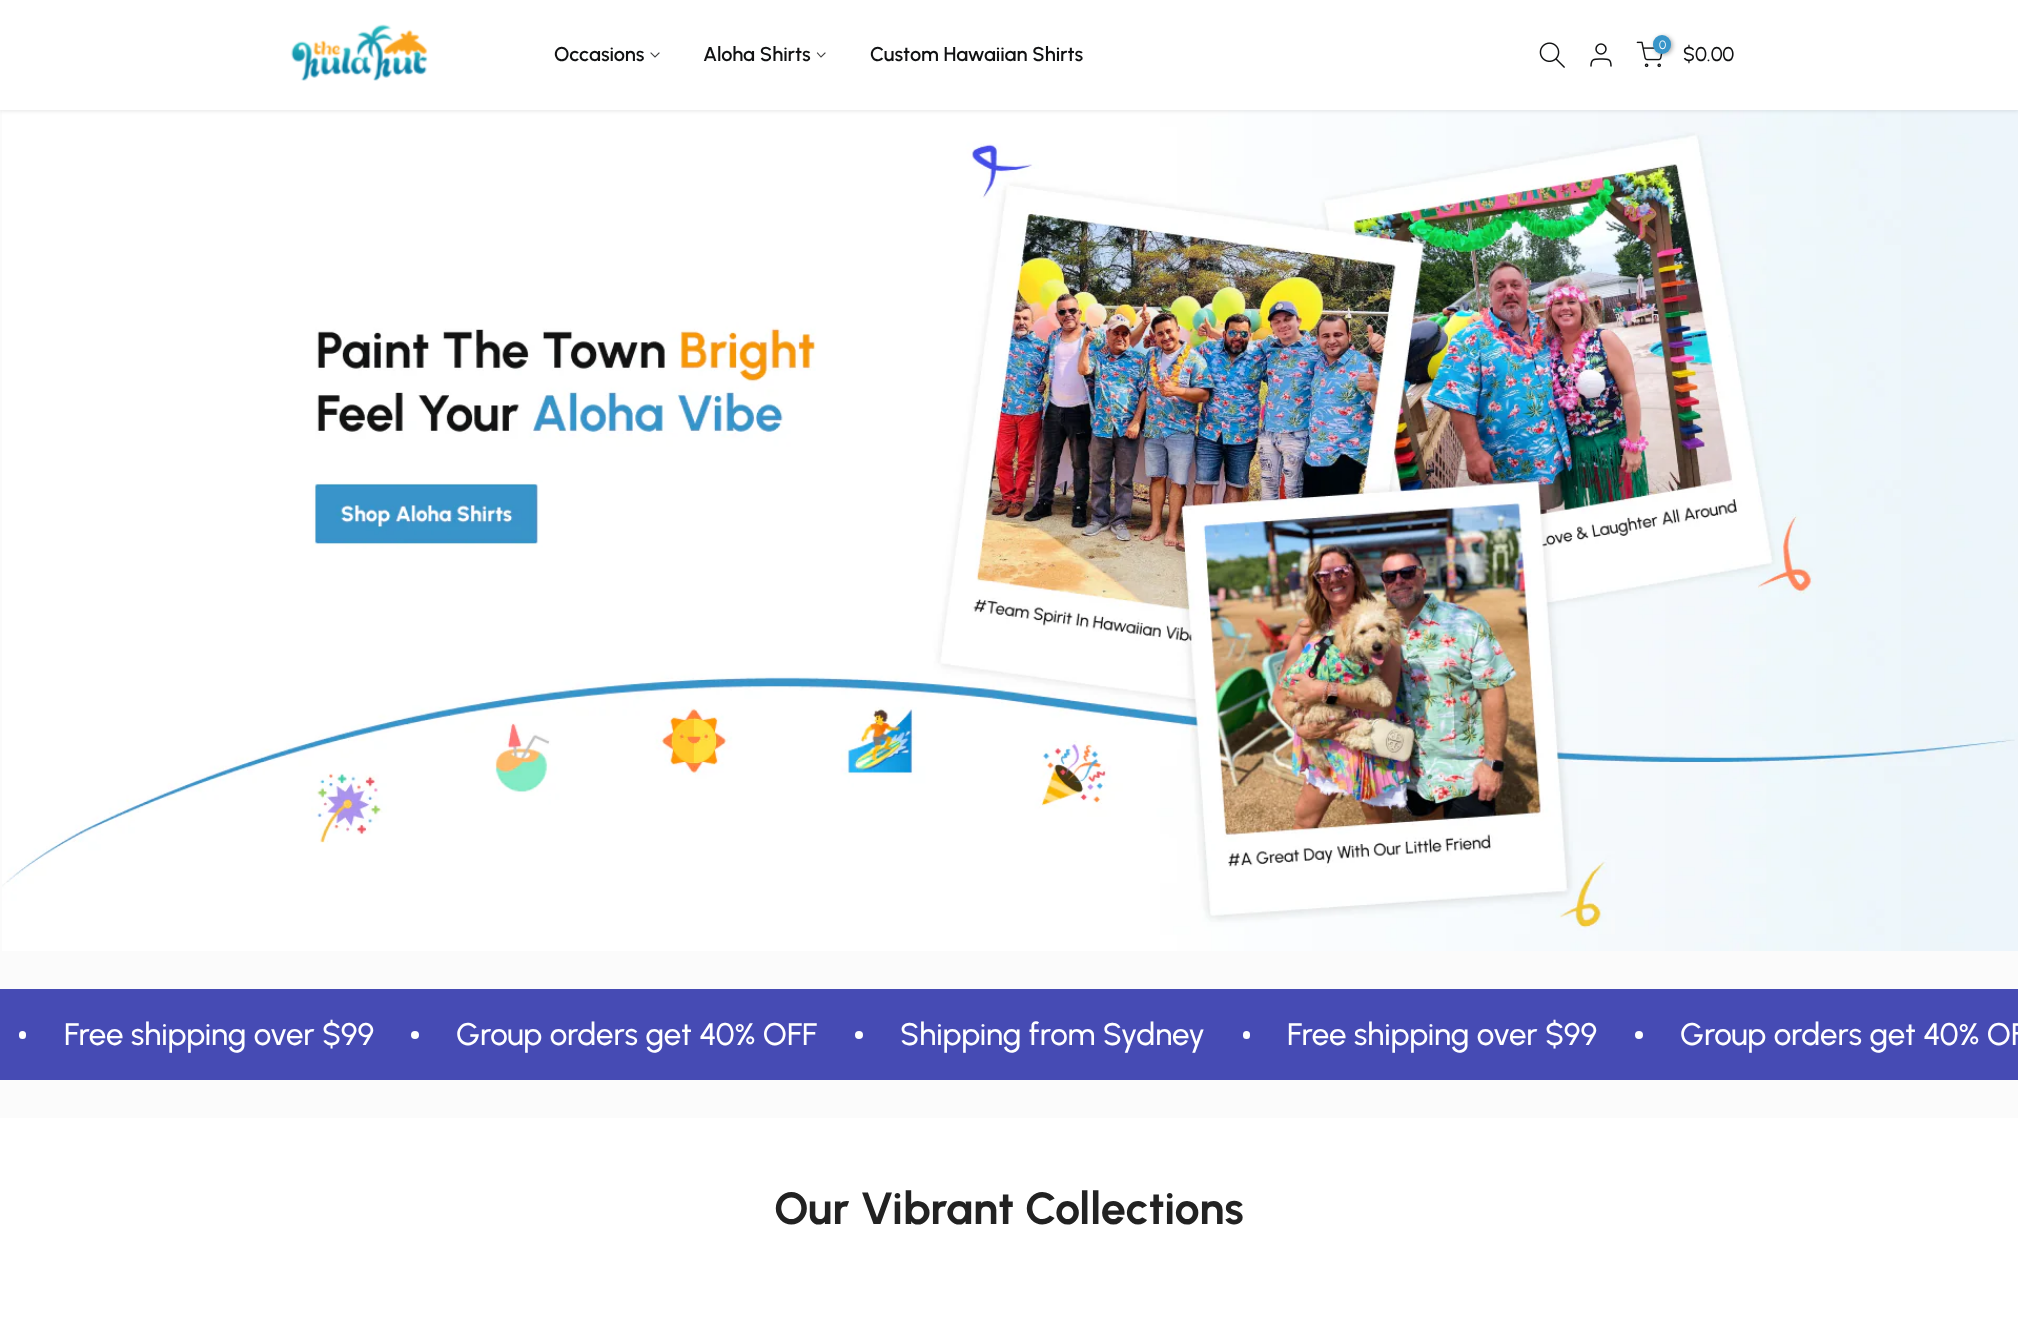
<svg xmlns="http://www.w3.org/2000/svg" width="2018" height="1333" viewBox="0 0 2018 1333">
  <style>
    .t1 { font: 600 20px Urbanist; fill: #111213; }
    .t2 { font: 12px Urbanist; fill: #fff; }
    .t3 { font: 500 20px Urbanist; fill: #111213; }
    .t4 { font: 500 31.25px Urbanist; fill: #fff; }
    .t5 { font: bold 45px Urbanist; fill: #222; }
  </style>
  <rect width="100%" height="100%" fill="#fbfbfb"/>
  <image x="2" y="110" width="2016" height="841" href="images/4.png"/>
  <rect x="0" y="1" width="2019" height="110" fill="#0000001a" filter="blur(2px)"/>
  <rect x="0" y="0" width="2018" height="110" fill="#fff"/>
  <image x="290" y="24" width="138" height="57" href="images/1.png"/>
  <text x="554" y="61" class="t1">Occasions</text>
  <path d="M659 53L655 57L651 53" fill="none" stroke="#414142" stroke-width="1.1" stroke-linecap="square"/>
  <text x="703" y="61" class="t1">Aloha Shirts</text>
  <path d="M825 53L821 57L817.5 53" fill="none" stroke="#414142" stroke-width="1.1" stroke-linecap="square"/>
  <text x="870" y="61" class="t1">Custom Hawaiian Shirts</text>
  <image x="1539" y="42" width="26" height="26" href="images/2.png"/>
  <circle cx="1601" cy="49" r="5" fill="none" stroke="#111213" stroke-width="1.5"/>
  <path d="M1611 66C1611 58.5 1608 59 1601 59C1594.5 59 1591 58.5 1591 66" fill="none" stroke="#111213" stroke-width="1.5" stroke-linecap="round" stroke-linejoin="round"/>
  <image x="1636" y="41" width="27" height="27" href="images/3.png"/>
  <rect x="1654" y="36" width="19" height="19" rx="9.5" fill="#0000004d" filter="blur(2px)"/>
  <rect x="1653" y="35" width="18" height="19" rx="9" fill="#3895c9"/>
  <text x="1659" y="49" class="t2">0</text>
  <text x="1683" y="61" class="t3">$0.00</text>
  <rect x="0" y="989" width="2018" height="91" fill="#464bb4"/>
  <rect x="19" y="1031" width="7" height="8" rx="3.5" fill="#fff"/>
  <text x="64" y="1045" class="t4">Free shipping over $99</text>
  <circle cx="415" cy="1035" r="4" fill="#fff"/>
  <text x="456" y="1045" class="t4">Group orders get 40% OFF</text>
  <circle cx="859" cy="1035" r="4" fill="#fff"/>
  <text x="900" y="1045" class="t4">Shipping from Sydney</text>
  <rect x="1243" y="1031" width="7" height="8" rx="3.5" fill="#fff"/>
  <text x="1287" y="1045" class="t4">Free shipping over $99</text>
  <circle cx="1639" cy="1035" r="4" fill="#fff"/>
  <text x="1680" y="1045" class="t4">Group orders get 40% OF</text>
  <rect x="0" y="1118" width="2018" height="215" fill="#fff"/>
  <text x="774" y="1224" class="t5">Our Vibrant Collections</text>
</svg>
